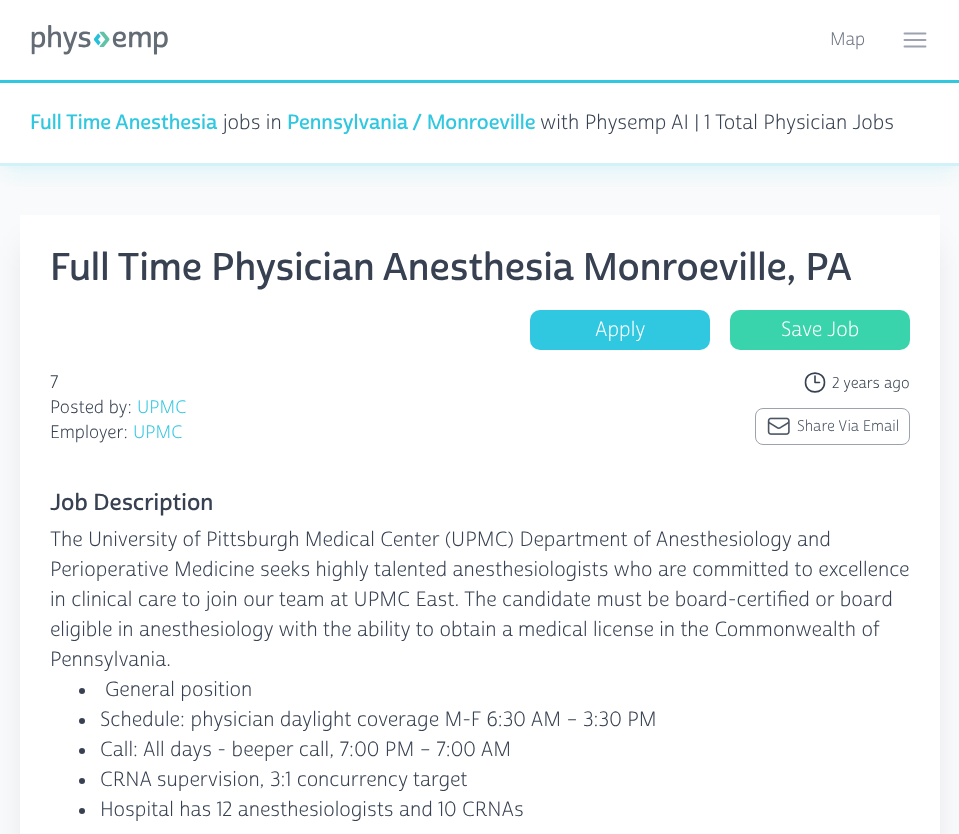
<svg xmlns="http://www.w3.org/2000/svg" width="959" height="834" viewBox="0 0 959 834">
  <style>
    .t1 { font: 17.5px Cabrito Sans; fill: #6b7280; }
    .t2 { font: bold 20px Cabrito Sans; fill: #30c7e0; }
    .t3 { font: 20px Cabrito Sans; fill: #374151; }
    .t4 { font: bold 37.5px Cabrito Sans; fill: #374151; }
    .t5 { font: 20px Cabrito Sans; fill: #fff; }
    .t6 { font: 17.5px Cabrito Sans; fill: #374151; }
    .t7 { font: 15px Cabrito Sans; fill: #374151; }
    .t8 { font: 17.5px Cabrito Sans; fill: #30c7e0; }
    .t9 { font: 15px Cabrito Sans; fill: #4b5563; }
    .t10 { font: bold 22.5px Cabrito Sans; fill: #374151; }
  </style>
  <rect width="100%" height="100%" fill="#f9fafb"/>
  <rect x="5" y="10" width="950" height="155" fill="#d0f2f880" filter="blur(4px)"/>
  <rect x="4" y="16" width="952" height="158" fill="#d0f2f880" filter="blur(9.5px)"/>
  <rect x="0" y="0" width="959" height="163" fill="#fff"/>
  <rect x="0" y="163" width="959" height="3" fill="#d0f2f8"/>
  <rect x="0" y="80" width="959" height="3" fill="#30c7e0"/>
  <image x="31" y="25" width="137" height="30" href="images/1.png"/>
  <text x="830" y="45" class="t1">Map</text>
  <path d="M904.5 33.5H925.5M904.5 40H925.5M904.5 46.5H925.5" fill="none" stroke="#9ca3af" stroke-width="1.9" stroke-linecap="round" stroke-linejoin="round"/>
  <text x="30" y="129" class="t2">Full Time Anesthesia</text>
  <text x="223" y="129" class="t3">jobs in</text>
  <text x="287" y="129" class="t2">Pennsylvania / Monroeville</text>
  <text x="540" y="129" class="t3">with Physemp AI | 1 Total Physician Jobs</text>
  <rect x="26" y="246" width="908" height="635" fill="#0000001a" filter="blur(15.5px)"/>
  <rect x="20" y="215" width="920" height="619" fill="#fff"/>
  <text x="50" y="280" class="t4">Full Time Physician Anesthesia Monroeville, PA</text>
  <rect x="530" y="310" width="180" height="40" rx="10" fill="#30c7e0"/>
  <text x="595" y="336" class="t5">Apply</text>
  <rect x="730" y="310" width="180" height="40" rx="10" fill="#39d4ac"/>
  <text x="781" y="336" class="t5">Save Job</text>
  <text x="50" y="388" class="t6">7</text>
  <path d="M815 376V382.5H819.5M824.5 382.5C824.5 395 805.5 395 805.5 382.5C805.5 370 824.5 370 824.5 382.5Z" fill="none" stroke="#374151" stroke-width="1.6" stroke-linecap="round" stroke-linejoin="round"/>
  <text x="832" y="388" class="t7">2 years ago</text>
  <text x="50" y="413" class="t6">Posted by:</text>
  <text x="137" y="413" class="t8">UPMC</text>
  <text x="50" y="438" class="t6">Employer:</text>
  <text x="133" y="438" class="t8">UPMC</text>
  <rect x="755.5" y="408.5" width="154" height="36" rx="7.5" fill="none" stroke="#9ca3af"/>
  <image x="767" y="417" width="23" height="18" href="images/2.png"/>
  <text x="797" y="431" class="t9">Share Via Email</text>
  <text x="50" y="510" class="t10">Job Description</text>
  <text x="50" y="546" class="t3">The University of Pittsburgh Medical Center (UPMC) Department of Anesthesiology and</text>
  <text x="50" y="576" class="t3">Perioperative Medicine seeks highly talented anesthesiologists who are committed to excellence</text>
  <text x="50" y="606" class="t3">in clinical care to join our team at UPMC East. The candidate must be board-certified or board</text>
  <text x="50" y="636" class="t3">eligible in anesthesiology with the ability to obtain a medical license in the Commonwealth of</text>
  <text x="50" y="666" class="t3">Pennsylvania.</text>
  <circle cx="82" cy="691" r="3" fill="#374151"/>
  <text x="105" y="696" class="t3">General position</text>
  <circle cx="82" cy="721" r="3" fill="#374151"/>
  <text x="100" y="726" class="t3">Schedule: physician daylight coverage M-F 6:30 AM – 3:30 PM</text>
  <circle cx="82" cy="751" r="3" fill="#374151"/>
  <text x="100" y="756" class="t3">Call: All days - beeper call, 7:00 PM – 7:00 AM</text>
  <circle cx="82" cy="781" r="3" fill="#374151"/>
  <text x="100" y="786" class="t3">CRNA supervision, 3:1 concurrency target</text>
  <circle cx="82" cy="811" r="3" fill="#374151"/>
  <text x="100" y="816" class="t3">Hospital has 12 anesthesiologists and 10 CRNAs</text>
</svg>
